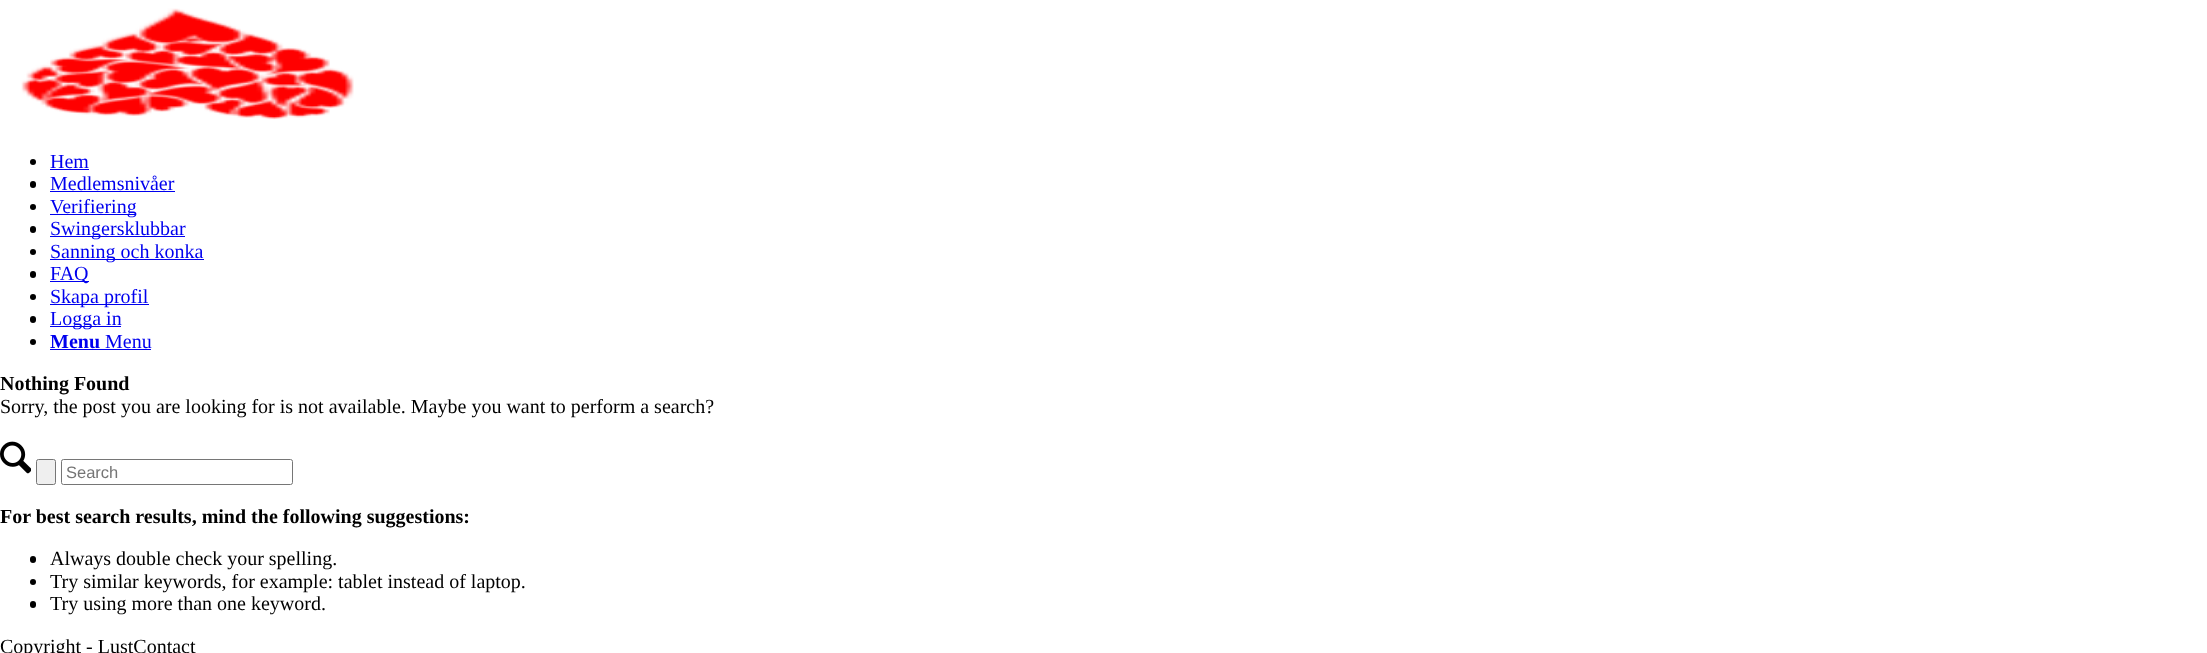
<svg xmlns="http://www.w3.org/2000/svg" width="2207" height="653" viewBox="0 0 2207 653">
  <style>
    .t1 { font: 20px Liberation Serif; fill: #00e; }
    .t2 { font: bold 20px Liberation Serif; fill: #00e; }
    .t3 { font: bold 20px Liberation Serif; fill: #000; }
    .t4 { font: 20px Liberation Serif; fill: #000; }
    .t5 { font: 16.5px Liberation Sans; fill: #757575; }
  </style>
  <rect width="100%" height="100%" fill="#fff"/>
  <image x="21" y="8" width="333" height="112" href="images/1.png"/>
  <circle cx="33" cy="162" r="3" fill="#000"/>
  <text x="50" y="168" class="t1">Hem</text>
  <rect x="50" y="169" width="39" height="1" fill="#00e"/>
  <rect x="30" y="181" width="6" height="7" rx="3" fill="#000"/>
  <text x="50" y="190" class="t1">Medlemsnivåer</text>
  <rect x="50" y="191" width="125" height="1" fill="#00e"/>
  <circle cx="33" cy="207" r="3" fill="#000"/>
  <rect x="50" y="214" width="86" height="1" fill="#00e"/>
  <text x="50" y="213" class="t1">Verifiering</text>
  <rect x="30" y="226" width="6" height="7" rx="3" fill="#000"/>
  <rect x="50" y="236" width="135" height="1" fill="#00e"/>
  <text x="50" y="235" class="t1">Swingersklubbar</text>
  <circle cx="33" cy="252" r="3" fill="#000"/>
  <rect x="50" y="259" width="154" height="1" fill="#00e"/>
  <text x="50" y="258" class="t1">Sanning och konka</text>
  <rect x="30" y="271" width="6" height="7" rx="3" fill="#000"/>
  <rect x="50" y="281" width="39" height="1" fill="#00e"/>
  <text x="50" y="280" class="t1">FAQ</text>
  <circle cx="33" cy="297" r="3" fill="#000"/>
  <rect x="50" y="304" width="99" height="1" fill="#00e"/>
  <text x="50" y="303" class="t1">Skapa profil</text>
  <rect x="30" y="316" width="6" height="7" rx="3" fill="#000"/>
  <rect x="50" y="326" width="71" height="1" fill="#00e"/>
  <text x="50" y="325" class="t1">Logga in</text>
  <circle cx="33" cy="342" r="3" fill="#000"/>
  <text x="50" y="348" class="t2">Menu</text>
  <rect x="50" y="349" width="101" height="1" fill="#00e"/>
  <text x="105" y="348" class="t1">Menu</text>
  <text x="0" y="390" class="t3">Nothing Found</text>
  <text x="0" y="413" class="t4">Sorry, the post you are looking for is not available. Maybe you want to perform a search?</text>
  <image x="0" y="441" width="31" height="33" href="images/2.png"/>
  <rect x="36.5" y="459.5" width="19" height="25" rx="2" fill="#efefef" stroke="#767676"/>
  <rect x="61.5" y="459.5" width="231" height="25" rx="2" fill="none" stroke="#767676"/>
  <text x="66" y="478" class="t5">Search</text>
  <text x="0" y="523" class="t3">For best search results, mind the following suggestions:</text>
  <rect x="30" y="556" width="6" height="7" rx="3" fill="#000"/>
  <text x="50" y="565" class="t4">Always double check your spelling.</text>
  <circle cx="33" cy="582" r="3" fill="#000"/>
  <text x="50" y="588" class="t4">Try similar keywords, for example: tablet instead of laptop.</text>
  <rect x="30" y="601" width="6" height="7" rx="3" fill="#000"/>
  <text x="50" y="610" class="t4">Try using more than one keyword.</text>
  <text x="0" y="653" class="t4">Copyright - LustContact</text>
</svg>
